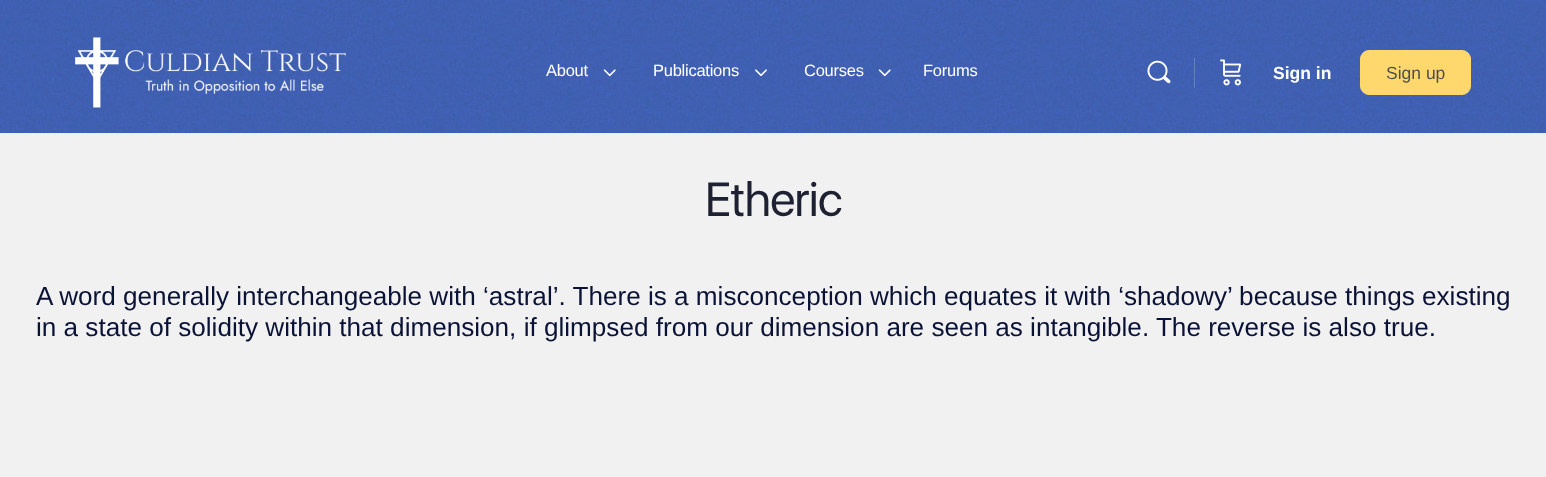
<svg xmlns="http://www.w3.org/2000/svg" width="1546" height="477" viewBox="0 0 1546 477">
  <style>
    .t1 { font: 16.5px Liberation Sans; letter-spacing: -0.25px; fill: #fff; }
    .t2 { font: bold 17.5px Liberation Sans; fill: #fff; }
    .t3 { font: 17.5px Liberation Sans; fill: #4f4f4f; }
    .t4 { font: 47.5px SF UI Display; letter-spacing: -0.75px; fill: #1e2132; }
    .t5 { font: 26.12px Liberation Sans; fill: #0a1236; }
  </style>
  <rect width="100%" height="100%" fill="#f1f1f1"/>
  <rect x="0" y="133" width="1546" height="1" fill="#ececed"/>
  <rect x="0" y="132" width="1546" height="1" fill="#4060b6"/>
  <image x="0" y="0" width="1546" height="133" href="images/1.png"/>
  <image x="75" y="37" width="271" height="71" href="images/2.png"/>
  <text x="546" y="76" class="t1">About</text>
  <image x="603" y="69" width="13" height="8" href="images/3.png"/>
  <text x="653" y="76" class="t1">Publications</text>
  <image x="755" y="69" width="12" height="8" href="images/4.png"/>
  <text x="804" y="76" class="t1">Courses</text>
  <image x="878" y="69" width="13" height="8" href="images/5.png"/>
  <text x="923" y="76" class="t1">Forums</text>
  <image x="1147" y="60" width="24" height="24" href="images/6.png"/>
  <rect x="1194" y="58" width="1" height="30" fill="#ffffff33"/>
  <image x="1220" y="59" width="22" height="27" href="images/7.png"/>
  <text x="1273" y="79" class="t2">Sign in</text>
  <rect x="1360.5" y="50.5" width="110" height="44" rx="8.5" fill="#ffd86d" stroke="#ffd86d"/>
  <text x="1386" y="79" class="t3">Sign up</text>
  <text x="705" y="216" class="t4">Etheric</text>
  <text x="36" y="305" class="t5">A word generally interchangeable with ‘astral’. There is a misconception which equates it with ‘shadowy’ because things existing</text>
  <text x="36" y="336" class="t5">in a state of solidity within that dimension, if glimpsed from our dimension are seen as intangible. The reverse is also true.</text>
</svg>
